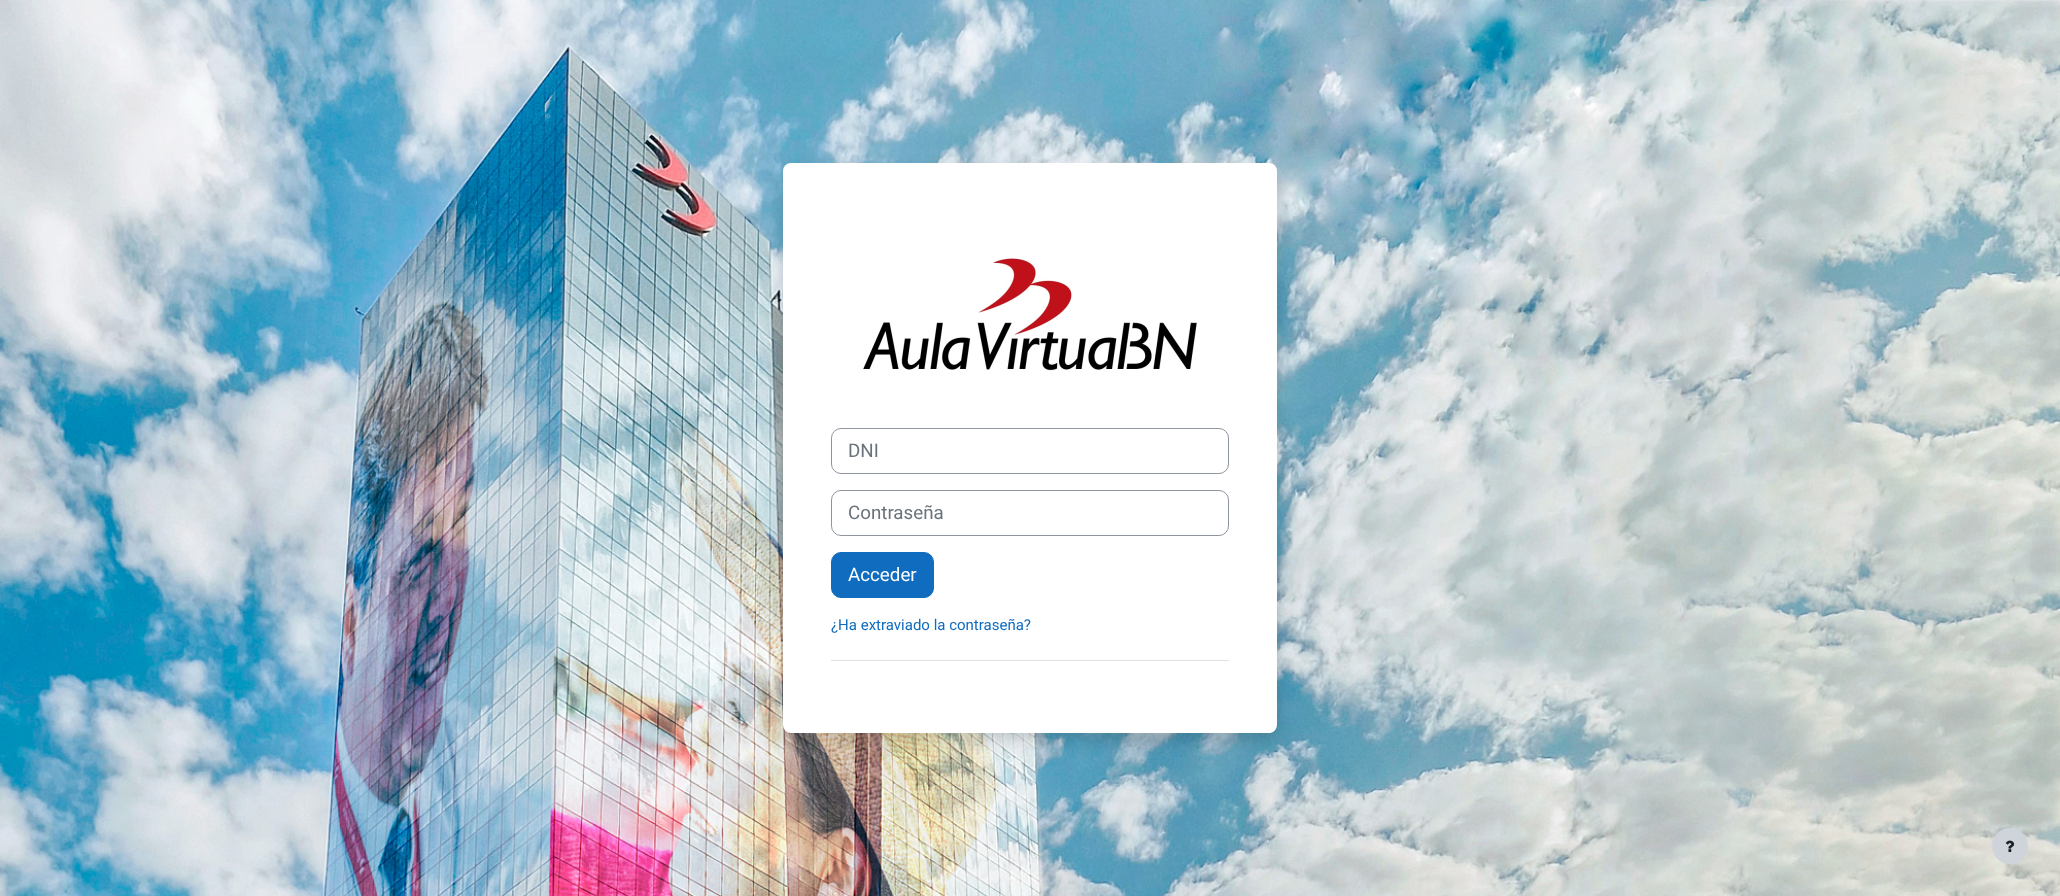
<svg xmlns="http://www.w3.org/2000/svg" width="2060" height="896" viewBox="0 0 2060 896">
  <style>
    .t1 { font: 18.75px Roboto; fill: #6a737b; }
    .t2 { font: 18.75px Roboto; fill: #fff; }
    .t3 { font: 15px Roboto; fill: #0f6cbf; }
  </style>
  <rect width="100%" height="100%" fill="#fff"/>
  <image x="0" y="0" width="2060" height="896" href="images/1.png"/>
  <rect x="783" y="171" width="494" height="570" rx="8" fill="#00000026" filter="blur(8px)"/>
  <rect x="783" y="163" width="494" height="570" rx="8" fill="#fff"/>
  <image x="863" y="258" width="334" height="113" href="images/2.png"/>
  <rect x="831.5" y="428.5" width="397" height="45" rx="9.5" fill="none" stroke="#8f959e"/>
  <text x="848" y="457" class="t1">DNI</text>
  <rect x="831.5" y="490.5" width="397" height="45" rx="9.5" fill="none" stroke="#8f959e"/>
  <text x="848" y="519" class="t1">Contraseña</text>
  <rect x="831.5" y="552.5" width="102" height="45" rx="9.5" fill="#0f6cbf" stroke="#0f6cbf"/>
  <text x="848" y="581" class="t2">Acceder</text>
  <text x="831" y="630" class="t3">¿Ha extraviado la contraseña?</text>
  <rect x="831" y="660" width="398" height="1" fill="#dee2e6"/>
  <circle cx="2010" cy="846" r="18" fill="#ced4da"/>
  <image x="2005" y="840" width="10" height="12" href="images/3.png"/>
</svg>
